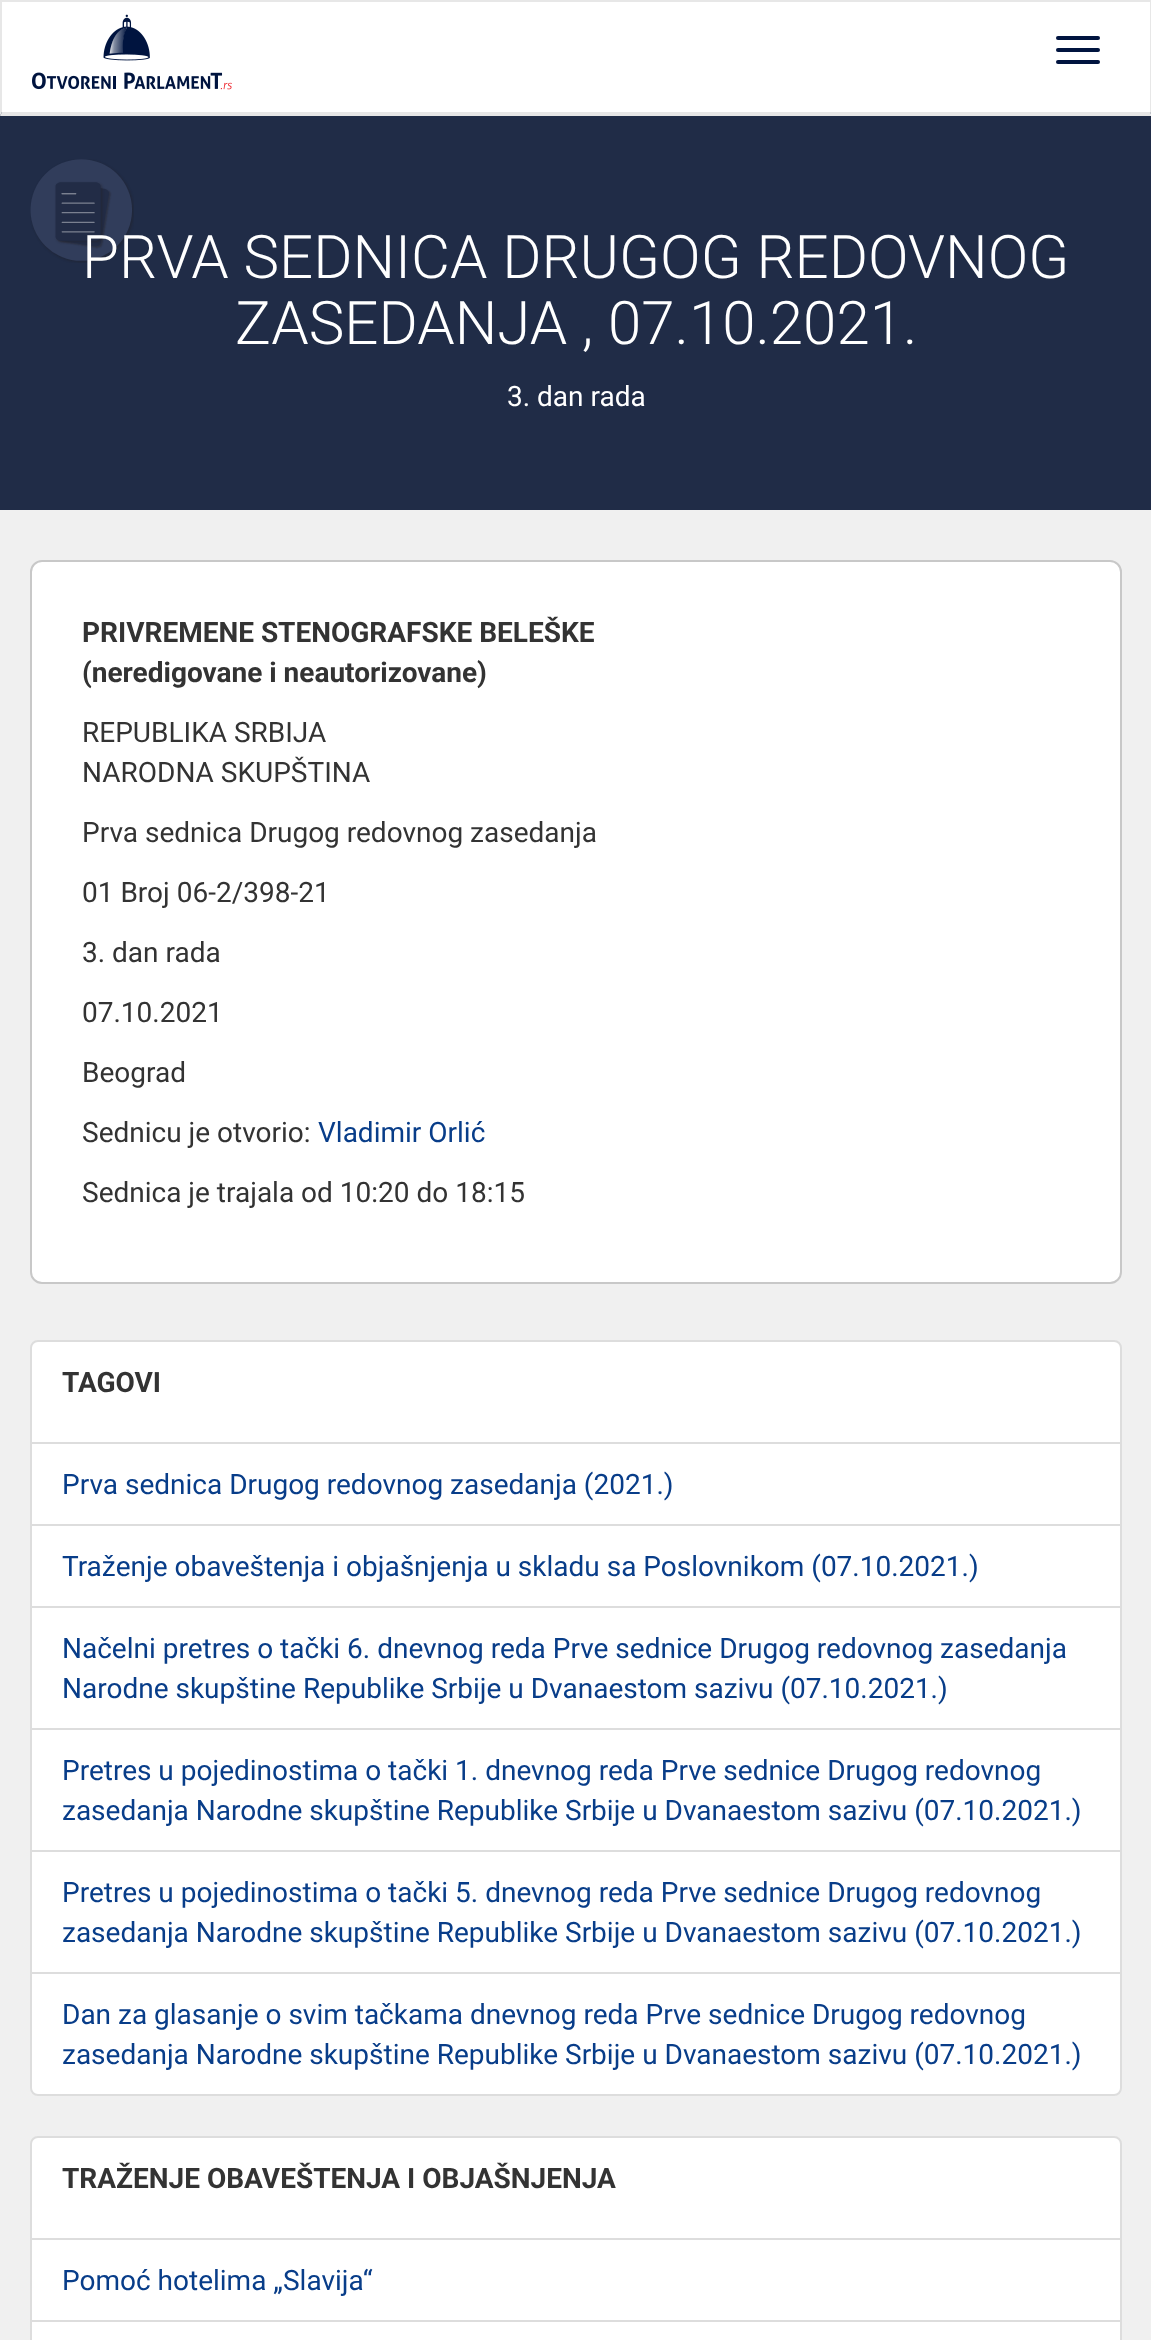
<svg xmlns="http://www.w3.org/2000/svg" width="1151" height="2340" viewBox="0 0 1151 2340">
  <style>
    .t1 { font: 300 60px Roboto; fill: #fff; }
    .t2 { font: 28px Roboto; fill: #fff; }
    .t3 { font: bold 28px Roboto; fill: #333; }
    .t4 { font: 28px Roboto; fill: #333; }
    .t5 { font: 28px Roboto; fill: #083d89; }
  </style>
  <rect width="100%" height="100%" fill="#f0f0f0"/>
  <rect x="2" y="2" width="1148" height="110" fill="#fff"/>
  <rect x="0" y="0" width="1151" height="2" fill="#e7e7e7"/>
  <rect x="0" y="112" width="1151" height="398" fill="#202c47"/>
  <path d="M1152 0V116L1150 112V2Z" fill="#e7e7e7"/>
  <path d="M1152 116H0L2 112H1150Z" fill="#e6e6e6"/>
  <path d="M0 116V0L2 2V112Z" fill="#e7e7e7"/>
  <image x="32" y="14" width="200" height="76" href="images/1.png"/>
  <rect x="1056" y="36" width="44" height="4" rx="2" fill="#00143f"/>
  <rect x="1056" y="48" width="44" height="4" rx="2" fill="#00143f"/>
  <rect x="1056" y="60" width="44" height="4" rx="2" fill="#00143f"/>
  <image x="30" y="159" width="104" height="104" href="images/2.png"/>
  <text x="82" y="278" class="t1">PRVA SEDNICA DRUGOG REDOVNOG</text>
  <text x="235" y="344" class="t1">ZASEDANJA , 07.10.2021.</text>
  <text x="507" y="406" class="t2">3. dan rada</text>
  <rect x="31" y="561" width="1090" height="722" rx="11" fill="#fff" stroke="#c8c8c8" stroke-width="2"/>
  <text x="82" y="642" class="t3">PRIVREMENE STENOGRAFSKE BELEŠKE</text>
  <text x="82" y="682" class="t3">(neredigovane i neautorizovane)</text>
  <text x="82" y="742" class="t4">REPUBLIKA SRBIJA</text>
  <text x="82" y="782" class="t4">NARODNA SKUPŠTINA</text>
  <text x="82" y="842" class="t4">Prva sednica Drugog redovnog zasedanja</text>
  <text x="82" y="902" class="t4">01 Broj 06-2/398-21</text>
  <text x="82" y="962" class="t4">3. dan rada</text>
  <text x="82" y="1022" class="t4">07.10.2021</text>
  <text x="82" y="1082" class="t4">Beograd</text>
  <text x="82" y="1142" class="t4">Sednicu je otvorio:</text>
  <text x="318" y="1142" class="t5">Vladimir Orlić</text>
  <text x="82" y="1202" class="t4">Sednica je trajala od 10:20 do 18:15</text>
  <path d="M38 1341H1114C1118 1341 1121 1344 1121 1348V1443H31V1348C31 1344 34 1341 38 1341Z" fill="#fff" stroke="#ddd" stroke-width="2"/>
  <text x="62" y="1392" class="t3">TAGOVI</text>
  <rect x="31" y="1443" width="1090" height="82" fill="#fff" stroke="#ddd" stroke-width="2"/>
  <text x="62" y="1494" class="t5">Prva sednica Drugog redovnog zasedanja (2021.)</text>
  <rect x="31" y="1525" width="1090" height="82" fill="#fff" stroke="#ddd" stroke-width="2"/>
  <text x="62" y="1576" class="t5">Traženje obaveštenja i objašnjenja u skladu sa Poslovnikom (07.10.2021.)</text>
  <rect x="31" y="1607" width="1090" height="122" fill="#fff" stroke="#ddd" stroke-width="2"/>
  <text x="62" y="1658" class="t5">Načelni pretres o tački 6. dnevnog reda Prve sednice Drugog redovnog zasedanja</text>
  <text x="62" y="1698" class="t5">Narodne skupštine Republike Srbije u Dvanaestom sazivu (07.10.2021.)</text>
  <rect x="31" y="1729" width="1090" height="122" fill="#fff" stroke="#ddd" stroke-width="2"/>
  <text x="62" y="1780" class="t5">Pretres u pojedinostima o tački 1. dnevnog reda Prve sednice Drugog redovnog</text>
  <text x="62" y="1820" class="t5">zasedanja Narodne skupštine Republike Srbije u Dvanaestom sazivu (07.10.2021.)</text>
  <rect x="31" y="1851" width="1090" height="122" fill="#fff" stroke="#ddd" stroke-width="2"/>
  <text x="62" y="1902" class="t5">Pretres u pojedinostima o tački 5. dnevnog reda Prve sednice Drugog redovnog</text>
  <text x="62" y="1942" class="t5">zasedanja Narodne skupštine Republike Srbije u Dvanaestom sazivu (07.10.2021.)</text>
  <path d="M31 1973H1121V2088C1121 2092 1118 2095 1114 2095H38C34 2095 31 2092 31 2088Z" fill="#fff" stroke="#ddd" stroke-width="2"/>
  <text x="62" y="2024" class="t5">Dan za glasanje o svim tačkama dnevnog reda Prve sednice Drugog redovnog</text>
  <text x="62" y="2064" class="t5">zasedanja Narodne skupštine Republike Srbije u Dvanaestom sazivu (07.10.2021.)</text>
  <path d="M38 2137H1114C1118 2137 1121 2140 1121 2144V2239H31V2144C31 2140 34 2137 38 2137Z" fill="#fff" stroke="#ddd" stroke-width="2"/>
  <text x="62" y="2188" class="t3">TRAŽENJE OBAVEŠTENJA I OBJAŠNJENJA</text>
  <rect x="31" y="2239" width="1090" height="82" fill="#fff" stroke="#ddd" stroke-width="2"/>
  <text x="62" y="2290" class="t5">Pomoć hotelima „Slavija“</text>
  <rect x="31" y="2321" width="1090" height="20" fill="#fff" stroke="#ddd" stroke-width="2"/>
</svg>
